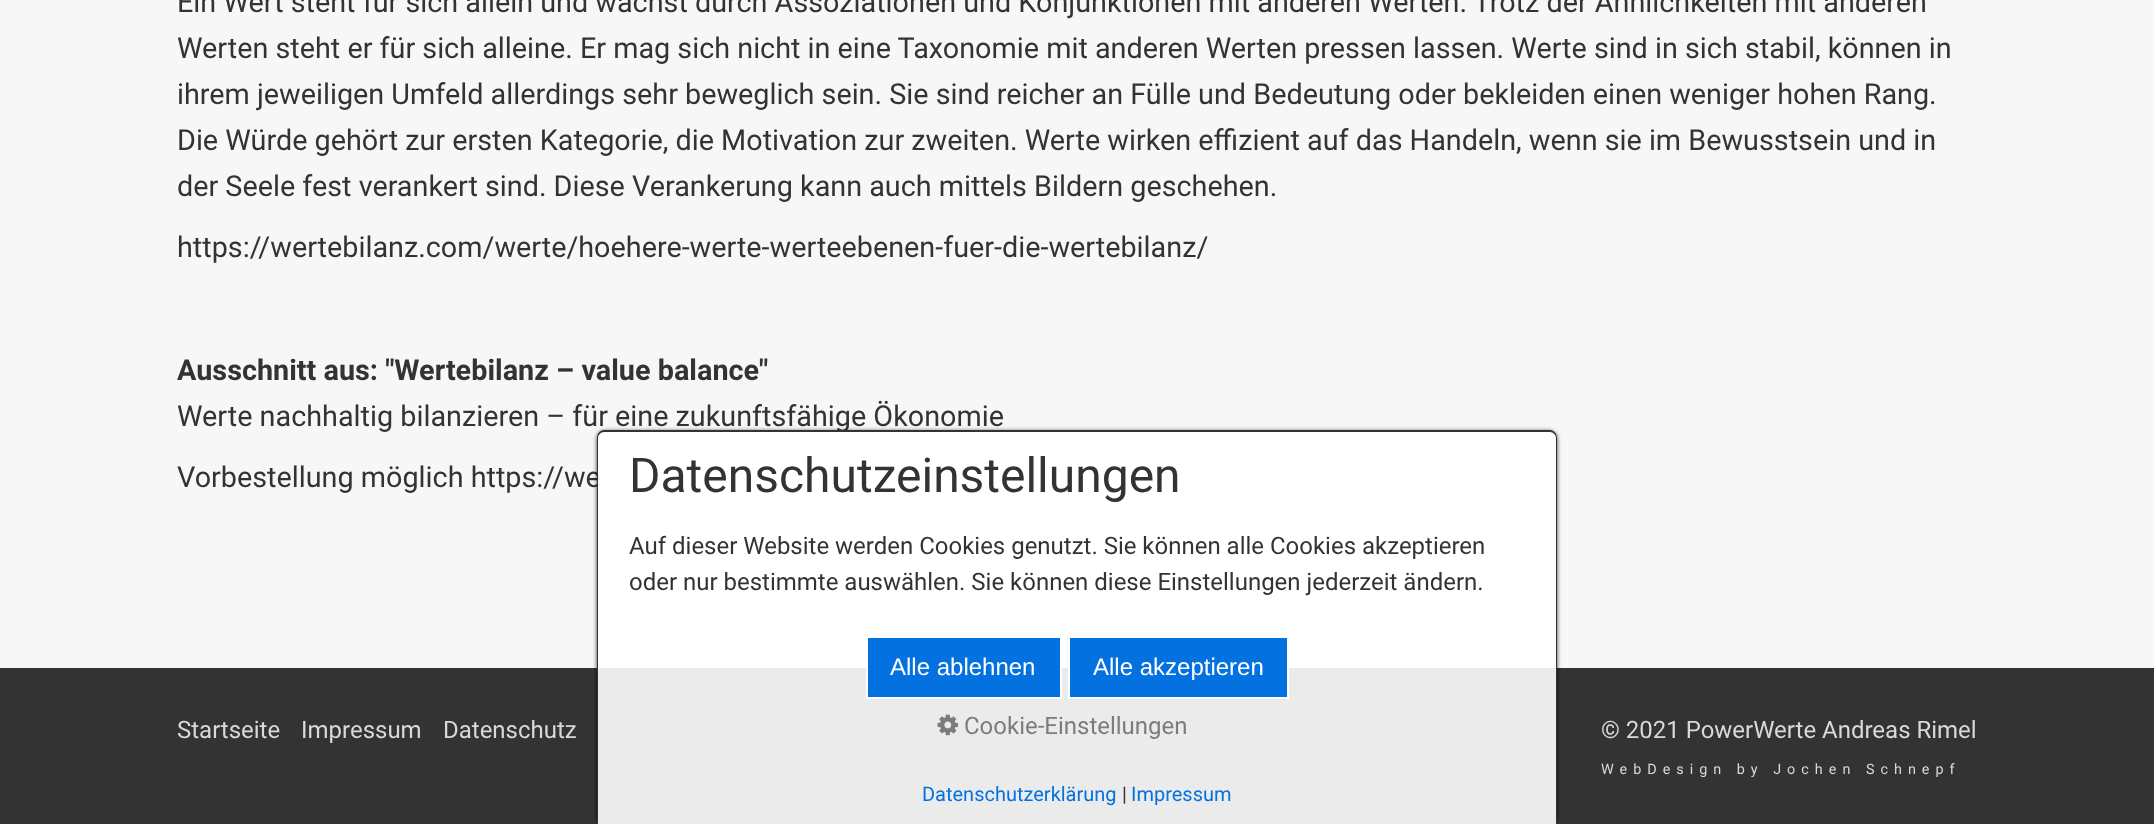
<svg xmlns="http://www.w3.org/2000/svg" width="2154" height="824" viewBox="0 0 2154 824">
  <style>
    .t1 { font: 28.8px Roboto; fill: #333; }
    .t2 { font: bold 28.8px Roboto; fill: #333; }
    .t3 { font: 24px Roboto; fill: #d9d9d9; }
    .t4 { font: 14.4px Roboto; letter-spacing: 6px; fill: #d9d9d9; }
    .t5 { font: 48px Roboto; fill: #333; }
    .t6 { font: 24px Roboto; fill: #333; }
    .t7 { font: 24px Liberation Sans; fill: #fff; }
    .t8 { font: 24px Roboto; fill: #7c7c7c; }
    .t9 { font: 20px Roboto; fill: #0371df; }
    .t10 { font: 20px Roboto; fill: #333; }
  </style>
  <defs>
    <clipPath id="clip1"><path d="M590 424H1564V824H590ZM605 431H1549C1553.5 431 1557 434.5 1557 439V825H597V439C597 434.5 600.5 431 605 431Z" clip-rule="evenodd"/></clipPath>
  </defs>
  <rect width="100%" height="100%" fill="#f7f7f7"/>
  <text x="177" y="12" class="t1">Ein Wert steht für sich allein und wächst durch Assoziationen und Konjunktionen mit anderen Werten. Trotz der Ähnlichkeiten mit anderen</text>
  <text x="177" y="58" class="t1">Werten steht er für sich alleine. Er mag sich nicht in eine Taxonomie mit anderen Werten pressen lassen. Werte sind in sich stabil, können in</text>
  <text x="177" y="104" class="t1">ihrem jeweiligen Umfeld allerdings sehr beweglich sein. Sie sind reicher an Fülle und Bedeutung oder bekleiden einen weniger hohen Rang.</text>
  <text x="177" y="150" class="t1">Die Würde gehört zur ersten Kategorie, die Motivation zur zweiten. Werte wirken effizient auf das Handeln, wenn sie im Bewusstsein und in</text>
  <text x="177" y="196" class="t1">der Seele fest verankert sind. Diese Verankerung kann auch mittels Bildern geschehen.</text>
  <text x="177" y="257" class="t1">https://wertebilanz.com/werte/hoehere-werte-werteebenen-fuer-die-wertebilanz/</text>
  <text x="177" y="380" class="t2">Ausschnitt aus: "Wertebilanz – value balance"</text>
  <text x="177" y="426" class="t1">Werte nachhaltig bilanzieren – für eine zukunftsfähige Ökonomie</text>
  <text x="177" y="487" class="t1">Vorbestellung möglich https://we</text>
  <rect x="0" y="668" width="2154" height="156" fill="#333"/>
  <text x="177" y="738" class="t3">Startseite</text>
  <text x="301" y="738" class="t3">Impressum</text>
  <text x="443" y="738" class="t3">Datenschutz</text>
  <text x="1601" y="738" class="t3">© 2021 PowerWerte Andreas Rimel</text>
  <text x="1601" y="774" class="t4">WebDesign by Jochen Schnepf</text>
  <g clip-path="url(#clip1)">
    <rect x="597" y="431" width="960" height="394" rx="8" fill="#000000cc" filter="blur(2px)"/>
  </g>
  <path d="M605 431H1549C1553.5 431 1557 434.5 1557 439V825H597V439C597 434.5 600.5 431 605 431Z" fill="#ffffffe6"/>
  <path d="M604 430H1550C1554 430 1557 434 1557 438V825H597V438C597 434 600 430 604 430ZM604 432H1550C1553 432 1556 435 1556 438V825H598V438C598 435 601 432 604 432Z" fill="#333" fill-rule="evenodd"/>
  <text x="629" y="492" class="t5">Datenschutzeinstellungen</text>
  <text x="629" y="554" class="t6">Auf dieser Website werden Cookies genutzt. Sie können alle Cookies akzeptieren</text>
  <text x="629" y="590" class="t6">oder nur bestimmte auswählen. Sie können diese Einstellungen jederzeit ändern.</text>
  <rect x="867" y="637" width="194" height="61" fill="#0371df" stroke="#fff" stroke-width="2"/>
  <text x="890" y="675" class="t7">Alle ablehnen</text>
  <rect x="1069" y="637" width="219" height="61" fill="#0371df" stroke="#fff" stroke-width="2"/>
  <text x="1093" y="675" class="t7">Alle akzeptieren</text>
  <image x="937" y="714" width="22" height="22" href="images/1.png"/>
  <text x="964" y="734" class="t8">Cookie-Einstellungen</text>
  <text x="922" y="801" class="t9">Datenschutzerklärung</text>
  <text x="1122" y="801" class="t10">|</text>
  <text x="1131" y="801" class="t9">Impressum</text>
</svg>
